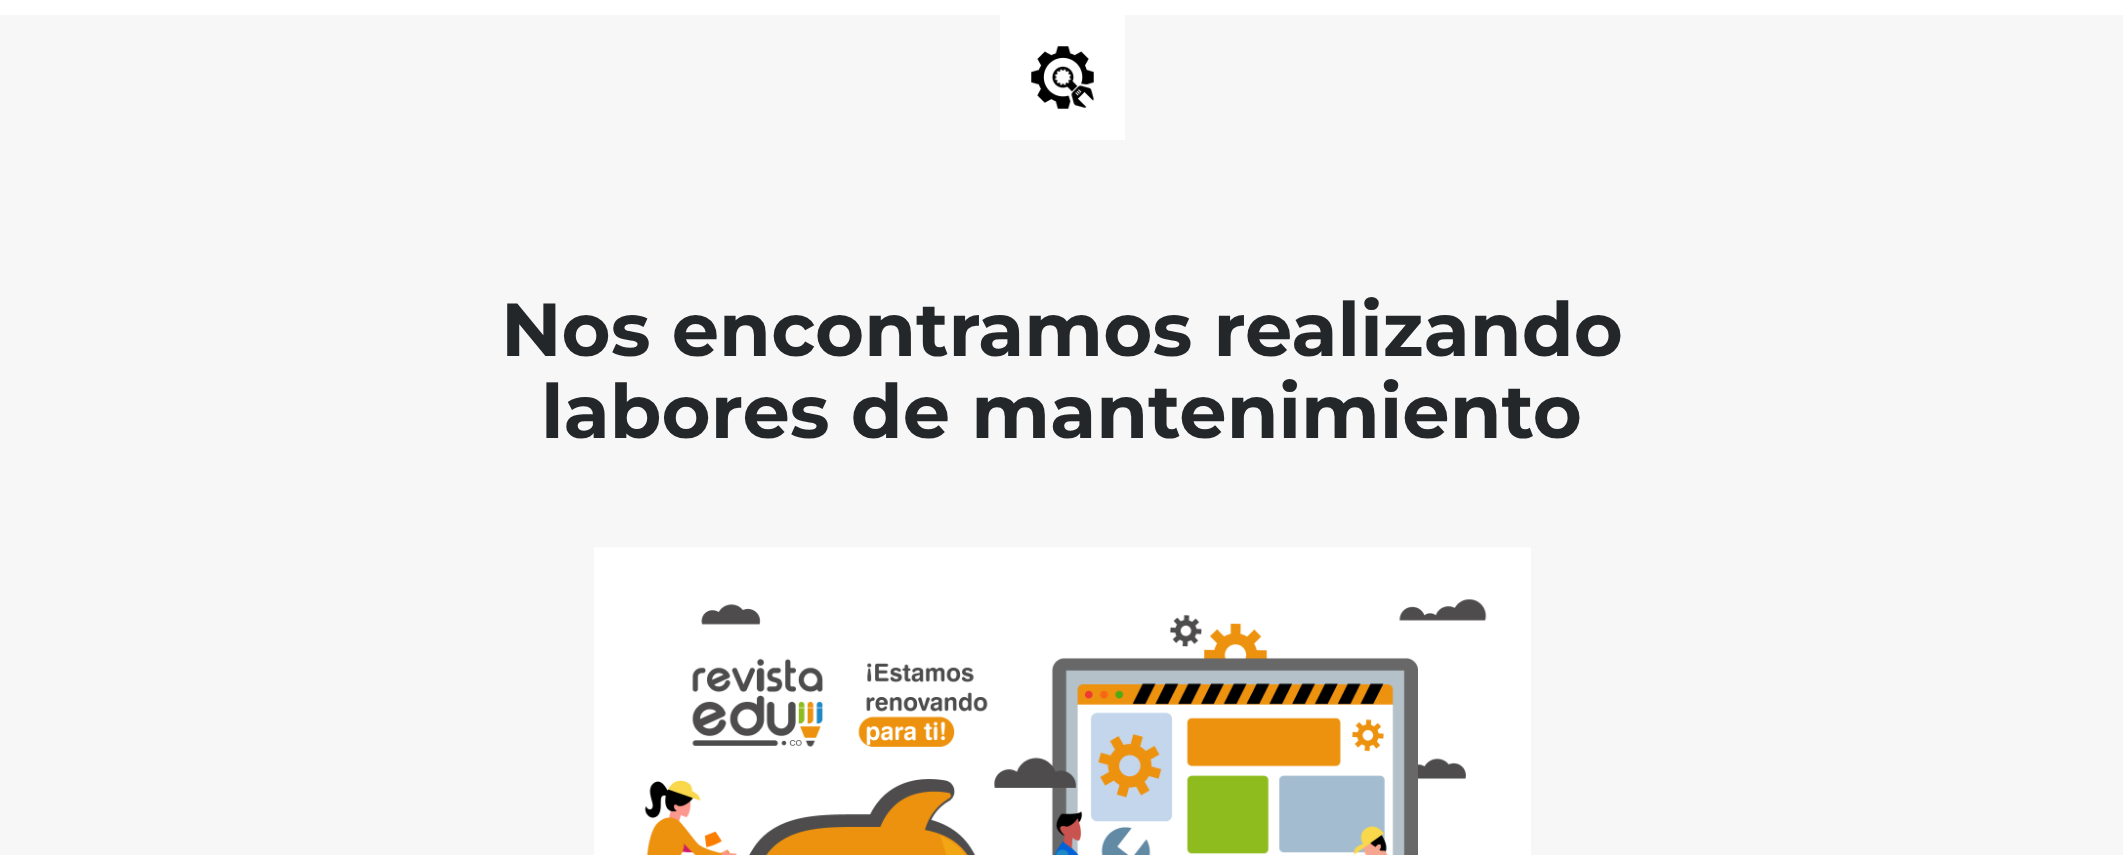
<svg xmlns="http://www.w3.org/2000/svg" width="2123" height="855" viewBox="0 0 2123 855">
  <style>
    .t1 { font: 100 75px Montserrat; fill: #23272a; }
  </style>
  <rect width="100%" height="100%" fill="#f7f7f7"/>
  <rect x="0" y="0" width="2123" height="15" fill="#fff"/>
  <rect x="1000" y="15" width="125" height="125" fill="#fff"/>
  <image x="1031" y="46" width="63" height="63" href="images/1.png"/>
  <text x="501" y="356" class="t1">Nos encontramos realizando</text>
  <text x="541" y="438" class="t1">labores de mantenimiento</text>
  <image x="594" y="547" width="937" height="308" href="images/2.png"/>
</svg>
